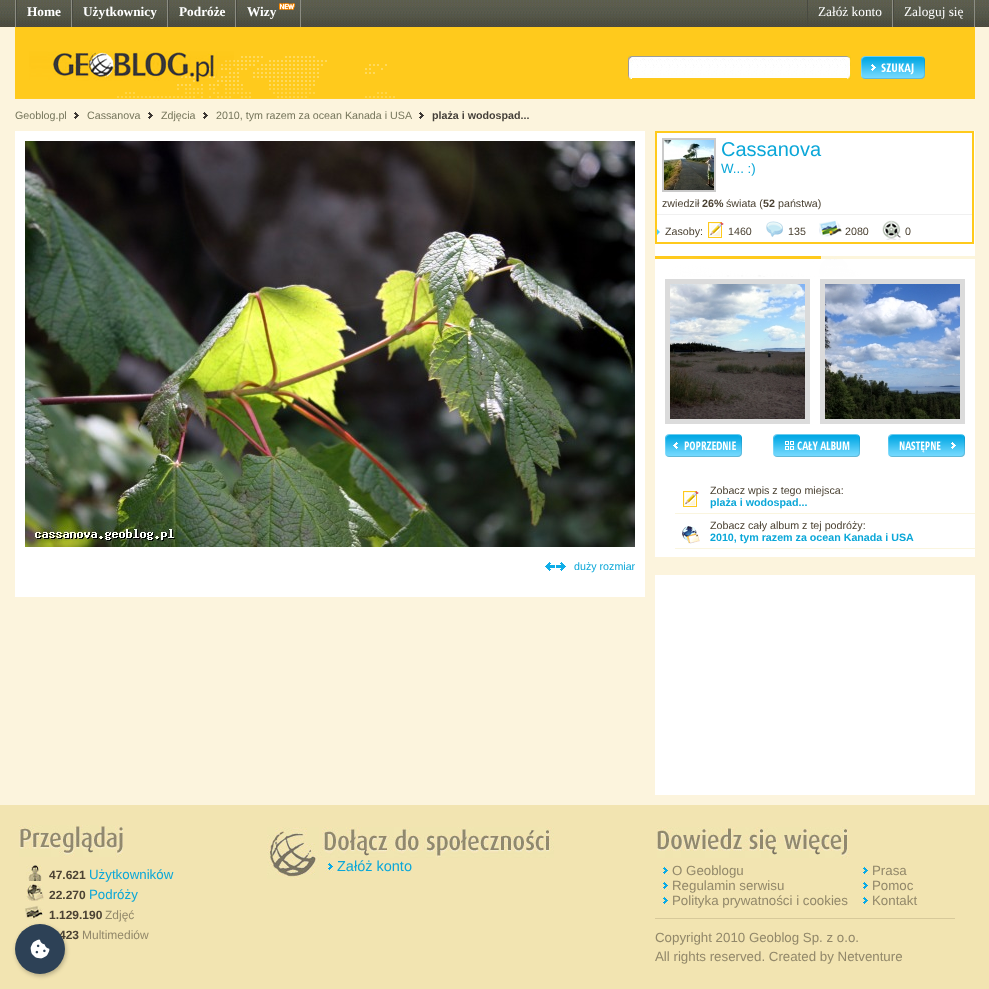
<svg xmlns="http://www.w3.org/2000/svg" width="989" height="989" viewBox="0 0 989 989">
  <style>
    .t1 { font: bold 13.3px Liberation Serif; fill: #fff; }
    .t2 { font: 13.3px Liberation Serif; fill: #fff; }
    .t3 { font: 10.7px Liberation Sans; fill: #76765c; }
    .t4 { font: bold 10.7px Liberation Sans; fill: #443f39; }
    .t5 { font: 20px Liberation Sans; fill: #0ba7d8; }
    .t6 { font: 13.3px Liberation Sans; fill: #0ba7d8; }
    .t7 { font: 10.7px Liberation Sans; fill: #4b4233; }
    .t8 { font: bold 10.7px Liberation Sans; fill: #4b4233; }
    .t9 { font: bold 10.7px Liberation Sans; fill: #0ba7d8; }
    .t10 { font: 10.7px Liberation Sans; fill: #0ba7d8; }
    .t11 { font: bold 12px Liberation Sans; fill: #4b4233; }
    .t12 { font: 14.5px Liberation Sans; fill: #0ba7d8; }
    .t13 { font: 12px Liberation Sans; fill: #92886a; }
    .t14 { font: 13.3px Liberation Sans; fill: #92886a; }
  </style>
  <rect width="100%" height="100%" fill="#fcf4dd"/>
  <image x="0" y="0" width="989" height="27" href="images/1.png"/>
  <rect x="15" y="0" width="1" height="27" fill="#8c8d83"/>
  <rect x="71" y="0" width="1" height="27" fill="#8c8d83"/>
  <rect x="16" y="0" width="1" height="27" fill="#494a41"/>
  <text x="27" y="16" class="t1">Home</text>
  <rect x="167" y="0" width="1" height="27" fill="#8c8d83"/>
  <rect x="72" y="0" width="1" height="27" fill="#494a41"/>
  <text x="83" y="16" class="t1">Użytkownicy</text>
  <rect x="235" y="0" width="1" height="27" fill="#8c8d83"/>
  <rect x="168" y="0" width="1" height="27" fill="#494a41"/>
  <text x="179" y="16" class="t1">Podróże</text>
  <rect x="300" y="0" width="1" height="27" fill="#8c8d83"/>
  <rect x="236" y="0" width="1" height="27" fill="#494a41"/>
  <text x="247" y="16" class="t1">Wizy</text>
  <image x="279" y="3" width="16" height="7" href="images/2.png"/>
  <rect x="892" y="0" width="1" height="27" fill="#8c8d83"/>
  <rect x="807" y="0" width="1" height="27" fill="#494a41"/>
  <text x="818" y="16" class="t2">Załóż konto</text>
  <rect x="974" y="0" width="1" height="27" fill="#8c8d83"/>
  <rect x="893" y="0" width="1" height="27" fill="#494a41"/>
  <text x="904" y="16" class="t2">Zaloguj się</text>
  <rect x="15" y="27" width="960" height="72" fill="#ffca1c"/>
  <image x="15" y="51" width="380" height="48" href="images/3.png"/>
  <image x="628" y="55" width="4" height="25" href="images/4.png"/>
  <rect x="632" y="77" width="215" height="1" fill="#fff"/>
  <image x="632" y="55" width="215" height="22" href="images/5.png"/>
  <image x="847" y="55" width="4" height="25" href="images/6.png"/>
  <image x="861" y="56" width="64" height="23" href="images/7.png"/>
  <text x="15" y="119" class="t3">Geoblog.pl</text>
  <image x="74" y="112" width="5" height="7" href="images/8.png"/>
  <text x="87" y="119" class="t3">Cassanova</text>
  <image x="148" y="112" width="5" height="7" href="images/8.png"/>
  <text x="161" y="119" class="t3">Zdjęcia</text>
  <image x="203" y="112" width="5" height="7" href="images/8.png"/>
  <text x="216" y="119" class="t3">2010, tym razem za ocean Kanada i USA</text>
  <image x="419" y="112" width="5" height="7" href="images/8.png"/>
  <text x="432" y="119" class="t4">plaża i wodospad...</text>
  <rect x="655" y="131" width="320" height="426" fill="#fff"/>
  <rect x="656" y="132" width="317" height="111" fill="none" stroke="#ffca1c" stroke-width="2"/>
  <rect x="657" y="214" width="315" height="1" fill="#f0f0f0"/>
  <rect x="663" y="139" width="52" height="52" fill="none" stroke="#cacaca" stroke-width="2"/>
  <image x="664" y="140" width="50" height="50" href="images/9.png"/>
  <text x="721" y="156" class="t5">Cassanova</text>
  <text x="721" y="173" class="t6">W... :)</text>
  <text x="662" y="207" class="t7">zwiedził</text>
  <text x="702" y="207" class="t8">26%</text>
  <text x="726" y="207" class="t7">świata (</text>
  <text x="763" y="207" class="t8">52</text>
  <text x="778" y="207" class="t7">państwa)</text>
  <image x="657" y="229" width="3" height="6" href="images/10.png"/>
  <text x="665" y="235" class="t7">Zasoby:</text>
  <image x="708" y="222" width="16" height="16" href="images/11.png"/>
  <text x="728" y="235" class="t7">1460</text>
  <image x="766" y="221" width="17" height="16" href="images/12.png"/>
  <text x="788" y="235" class="t7">135</text>
  <image x="819" y="220" width="23" height="17" href="images/13.png"/>
  <text x="845" y="235" class="t7">2080</text>
  <image x="882" y="220" width="19" height="20" href="images/14.png"/>
  <text x="905" y="235" class="t7">0</text>
  <image x="655" y="256" width="320" height="21" href="images/15.png"/>
  <rect x="667.5" y="281.5" width="140" height="140" fill="none" stroke="#dbdbdb" stroke-width="5"/>
  <image x="670" y="284" width="135" height="135" href="images/16.png"/>
  <rect x="822.5" y="281.5" width="140" height="140" fill="none" stroke="#dbdbdb" stroke-width="5"/>
  <image x="825" y="284" width="135" height="135" href="images/17.png"/>
  <image x="665" y="434" width="77" height="23" href="images/18.png"/>
  <image x="773" y="434" width="87" height="23" href="images/19.png"/>
  <image x="888" y="434" width="77" height="23" href="images/20.png"/>
  <rect x="675" y="513" width="300" height="1" fill="#faf5df"/>
  <image x="683" y="491" width="16" height="16" href="images/11.png"/>
  <text x="710" y="494" class="t7">Zobacz wpis z tego miejsca:</text>
  <text x="710" y="506" class="t9">plaża i wodospad...</text>
  <rect x="675" y="548" width="300" height="1" fill="#faf5df"/>
  <image x="682" y="526" width="18" height="18" href="images/21.png"/>
  <text x="710" y="529" class="t7">Zobacz cały album z tej podróży:</text>
  <text x="710" y="541" class="t9">2010, tym razem za ocean Kanada i USA</text>
  <rect x="655" y="575" width="320" height="220" fill="#fff"/>
  <rect x="15" y="131" width="630" height="466" fill="#fff"/>
  <image x="25" y="141" width="610" height="406" href="images/22.png"/>
  <image x="545" y="562" width="21" height="9" href="images/23.png"/>
  <text x="574" y="570" class="t10">duży rozmiar</text>
  <rect x="0" y="805" width="989" height="184" fill="#f2e4b1"/>
  <image x="25" y="905" width="19" height="16" href="images/31.png"/>
  <image x="26" y="924" width="16" height="5" href="images/32.png"/>
  <rect x="16" y="926" width="50" height="50" rx="25" fill="#00000040" filter="blur(2px)"/>
  <text x="59" y="939" class="t11">423</text>
  <circle cx="40" cy="949" r="25" fill="#2d4156"/>
  <image x="30" y="939" width="20" height="20" href="images/24.png"/>
  <image x="267" y="827" width="52" height="52" href="images/25.png"/>
  <image x="320" y="827" width="234" height="31" href="images/26.png"/>
  <image x="325" y="861" width="9" height="12" href="images/27.png"/>
  <text x="337" y="871" class="t12">Załóż konto</text>
  <image x="19" y="825" width="104" height="32" href="images/28.png"/>
  <image x="26" y="865" width="16" height="16" href="images/29.png"/>
  <text x="49" y="879" class="t11">47.621</text>
  <text x="89" y="879" class="t6">Użytkowników</text>
  <image x="26" y="884" width="18" height="17" href="images/30.png"/>
  <text x="49" y="899" class="t11">22.270</text>
  <text x="89" y="899" class="t6">Podróży</text>
  <text x="49" y="919" class="t11">1.129.190</text>
  <text x="105" y="919" class="t13">Zdjęć</text>
  <text x="82" y="939" class="t13">Multimediów</text>
  <image x="657" y="827" width="192" height="31" href="images/33.png"/>
  <rect x="655" y="918" width="300" height="1" fill="#d7c99a"/>
  <image x="660" y="865" width="9" height="12" href="images/27.png"/>
  <text x="672" y="875" class="t14">O Geoblogu</text>
  <image x="660" y="880" width="9" height="12" href="images/27.png"/>
  <text x="672" y="890" class="t14">Regulamin serwisu</text>
  <image x="660" y="895" width="9" height="12" href="images/27.png"/>
  <text x="672" y="905" class="t14">Polityka prywatności i cookies</text>
  <image x="860" y="865" width="9" height="12" href="images/27.png"/>
  <text x="872" y="875" class="t14">Prasa</text>
  <image x="860" y="880" width="9" height="12" href="images/27.png"/>
  <text x="872" y="890" class="t14">Pomoc</text>
  <image x="860" y="895" width="9" height="12" href="images/27.png"/>
  <text x="872" y="905" class="t14">Kontakt</text>
  <text x="655" y="942" class="t14">Copyright 2010 Geoblog Sp. z o.o.</text>
  <text x="655" y="961" class="t14">All rights reserved. Created by Netventure</text>
</svg>
